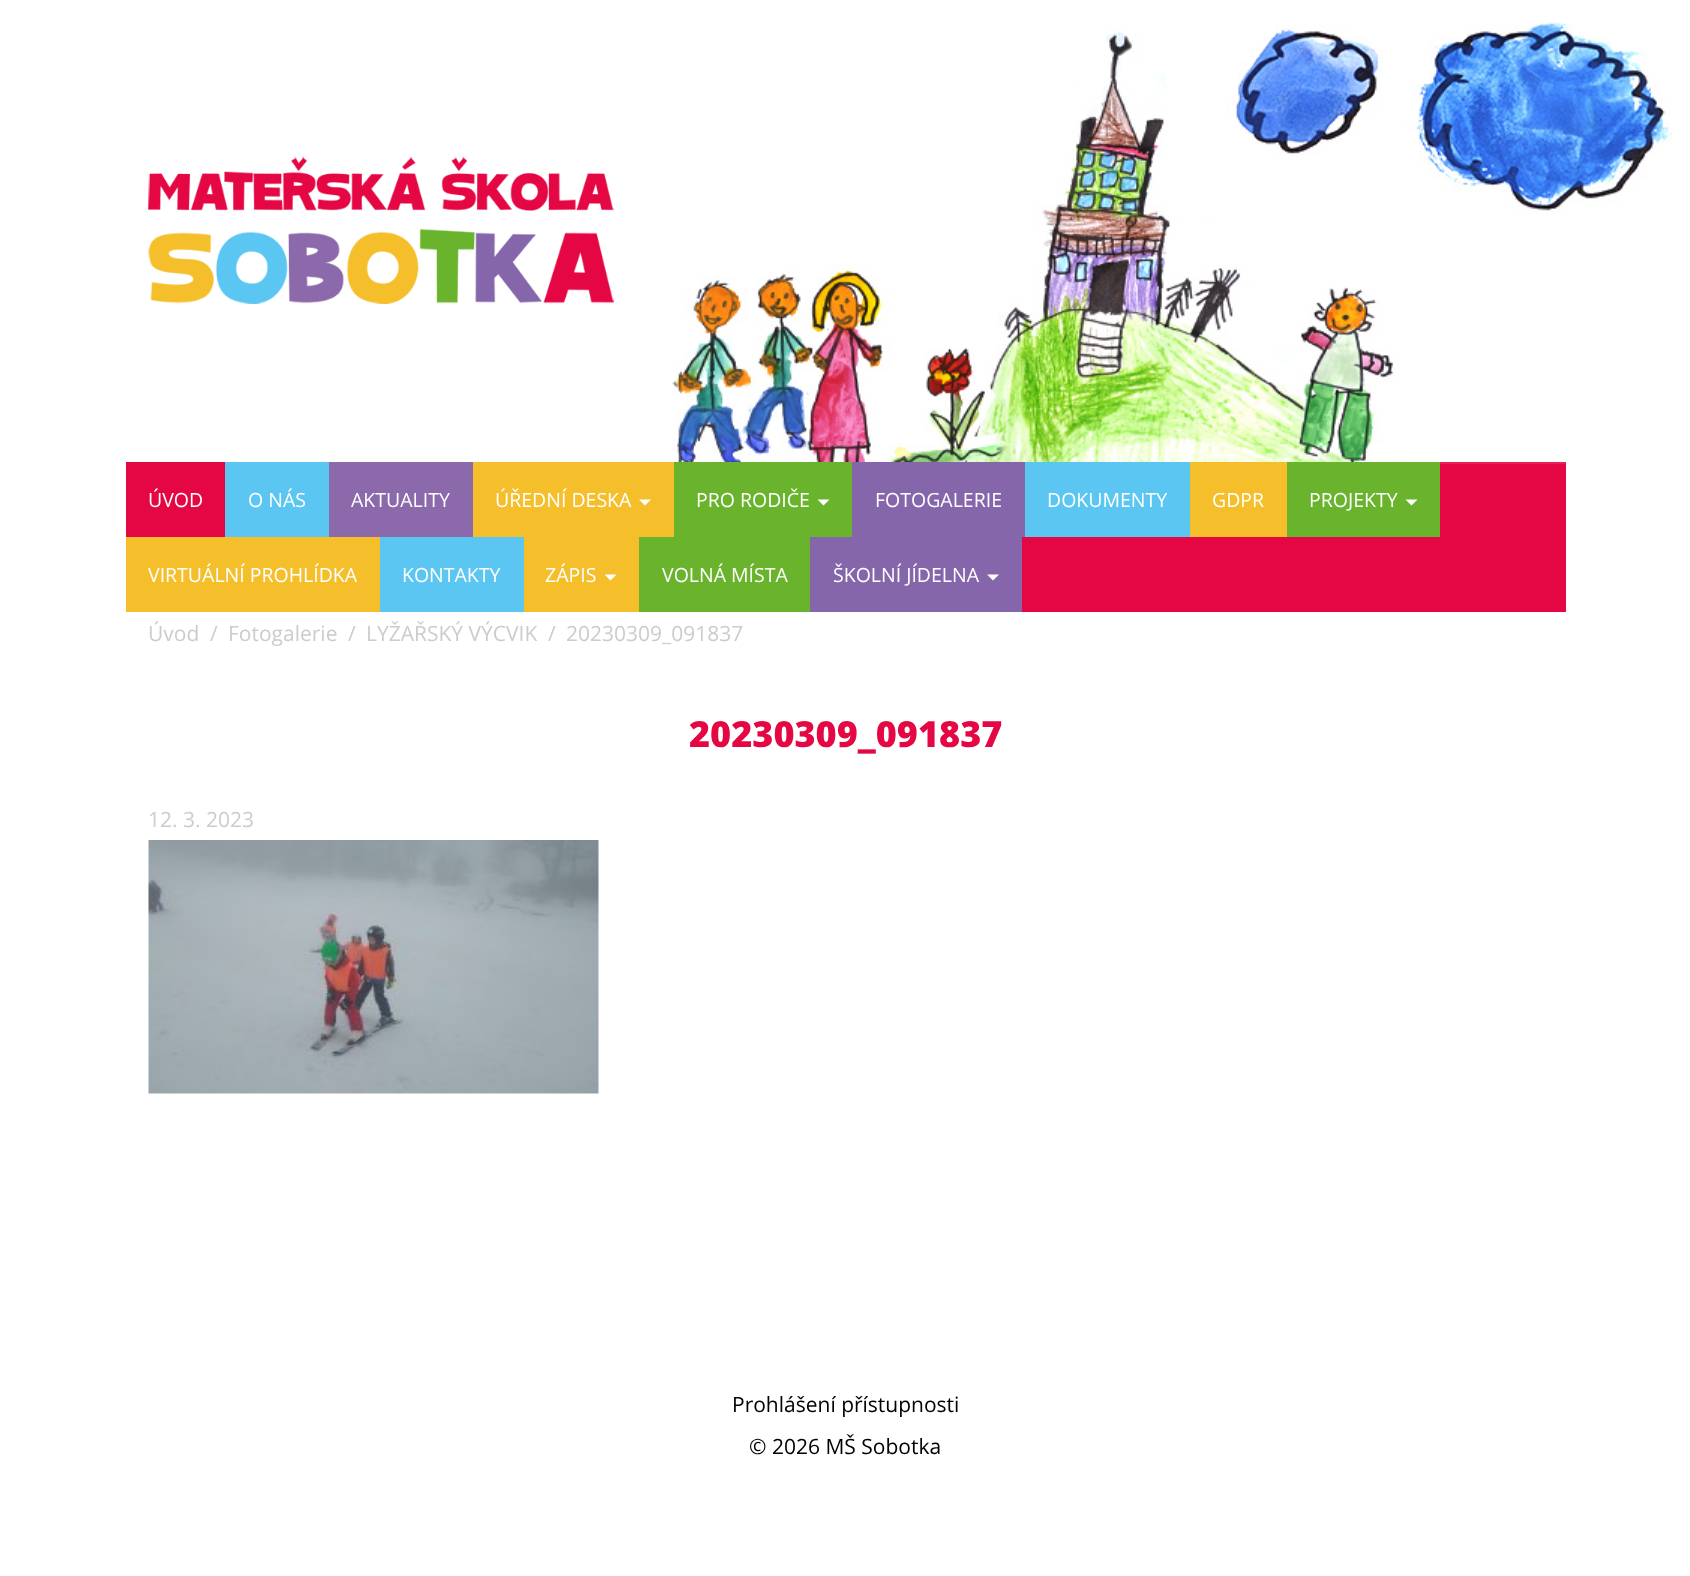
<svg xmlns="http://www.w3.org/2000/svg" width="1690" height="1576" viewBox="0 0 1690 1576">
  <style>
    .t1 { font: 19.5px Open Sans; fill: #fff; }
    .t2 { font: 21px Open Sans; fill: #ccc; }
    .t3 { font: 800 36px Open Sans; fill: #e50744; }
    .t4 { font: 21px Open Sans; fill: #000; }
  </style>
  <rect width="100%" height="100%" fill="#fff"/>
  <image x="148" y="157" width="466" height="147" href="images/1.png"/>
  <image x="672" y="21" width="1001" height="483" href="images/2.png"/>
  <rect x="1022" y="464" width="544" height="148" fill="#e50744"/>
  <rect x="1440" y="462" width="126" height="2" fill="#e82057"/>
  <rect x="126" y="462" width="99" height="75" fill="#e50744"/>
  <text x="148" y="507" class="t1">ÚVOD</text>
  <rect x="225" y="462" width="104" height="75" fill="#5bc6f1"/>
  <text x="248" y="507" class="t1">O NÁS</text>
  <rect x="329" y="462" width="144" height="75" fill="#8c69ab"/>
  <text x="351" y="507" class="t1">AKTUALITY</text>
  <rect x="473" y="462" width="201" height="75" fill="#f5bf2c"/>
  <text x="495" y="507" class="t1">ÚŘEDNÍ DESKA</text>
  <path d="M639 499.5H651L645 505.5Z" fill="#fff"/>
  <rect x="674" y="462" width="178" height="75" fill="#6ab42d"/>
  <text x="696" y="507" class="t1">PRO RODIČE</text>
  <path d="M817.5 499.5H829.5L823.5 505.5Z" fill="#fff"/>
  <rect x="852" y="462" width="173" height="75" fill="#8666aa"/>
  <text x="875" y="507" class="t1">FOTOGALERIE</text>
  <rect x="1025" y="462" width="165" height="75" fill="#5bc6f1"/>
  <text x="1047" y="507" class="t1">DOKUMENTY</text>
  <rect x="1190" y="462" width="97" height="75" fill="#f5bf2c"/>
  <text x="1212" y="507" class="t1">GDPR</text>
  <rect x="1287" y="462" width="153" height="75" fill="#6ab42d"/>
  <text x="1309" y="507" class="t1">PROJEKTY</text>
  <path d="M1405.5 499.5H1417.5L1411.5 505.5Z" fill="#fff"/>
  <rect x="126" y="537" width="254" height="75" fill="#f5bf2c"/>
  <text x="148" y="582" class="t1">VIRTUÁLNÍ PROHLÍDKA</text>
  <rect x="380" y="537" width="144" height="75" fill="#5bc6f1"/>
  <text x="402" y="582" class="t1">KONTAKTY</text>
  <rect x="524" y="537" width="115" height="75" fill="#f5bf2c"/>
  <text x="545" y="582" class="t1">ZÁPIS</text>
  <path d="M604.5 574.5H616.5L610.5 580.5Z" fill="#fff"/>
  <rect x="639" y="537" width="171" height="75" fill="#6ab42d"/>
  <text x="662" y="582" class="t1">VOLNÁ MÍSTA</text>
  <rect x="810" y="537" width="212" height="75" fill="#8666aa"/>
  <text x="833" y="582" class="t1">ŠKOLNÍ JÍDELNA</text>
  <path d="M987 574.5H999L993 580.5Z" fill="#fff"/>
  <text x="148" y="641" class="t2">Úvod</text>
  <text x="210" y="641" class="t2">/</text>
  <text x="228" y="641" class="t2">Fotogalerie</text>
  <text x="348" y="641" class="t2">/</text>
  <text x="366" y="641" class="t2">LYŽAŘSKÝ VÝCVIK</text>
  <text x="548" y="641" class="t2">/</text>
  <text x="566" y="641" class="t2">20230309_091837</text>
  <text x="689" y="747" class="t3">20230309_091837</text>
  <text x="148" y="827" class="t2">12. 3. 2023</text>
  <image x="148" y="840" width="451" height="254" href="images/3.png"/>
  <text x="732" y="1412" class="t4">Prohlášení přístupnosti</text>
  <text x="749" y="1454" class="t4">© 2026 MŠ Sobotka</text>
</svg>
